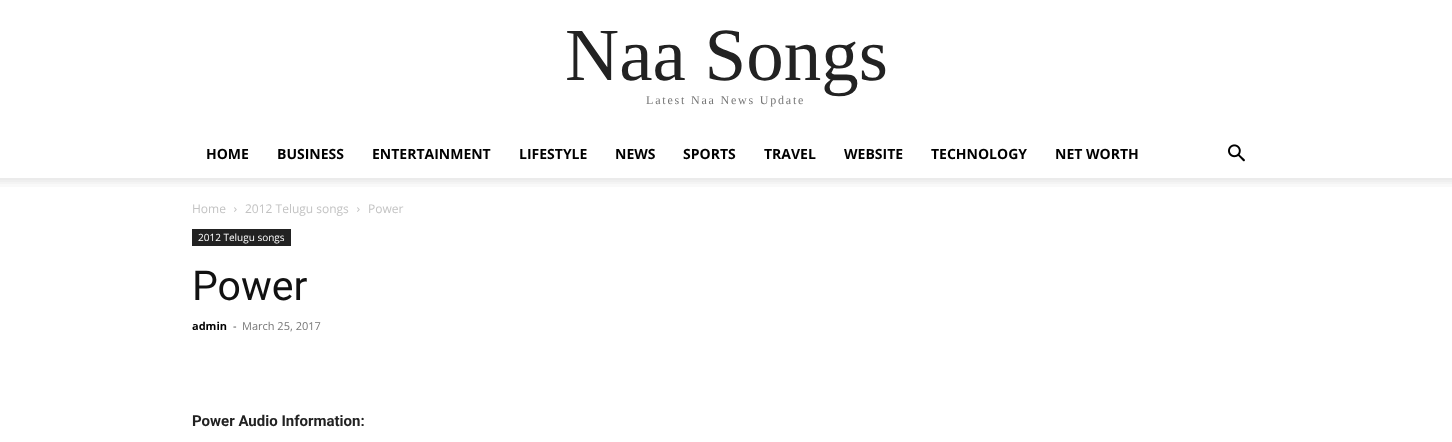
<svg xmlns="http://www.w3.org/2000/svg" width="1452" height="442" viewBox="0 0 1452 442">
  <style>
    .t1 { font: 75px Liberation Serif; fill: #222; }
    .t2 { font: 12px Liberation Serif; letter-spacing: 1.8px; fill: #767676; }
    .t3 { font: bold 14px Open Sans; fill: #000; }
    .t4 { font: 12px Open Sans; fill: #c3c3c3; }
    .t5 { font: 10px Open Sans; fill: #fff; }
    .t6 { font: 41px Roboto; fill: #111; }
    .t7 { font: bold 11px Open Sans; fill: #000; }
    .t8 { font: 11px Open Sans; fill: #444; }
    .t9 { font: 11px Open Sans; fill: #767676; }
    .t10 { font: bold 15px Roboto; fill: #222; }
  </style>
  <rect width="100%" height="100%" fill="#fff"/>
  <text x="565" y="80" class="t1">Naa Songs</text>
  <text x="646" y="104" class="t2">Latest Naa News Update</text>
  <text x="206" y="159" class="t3">HOME</text>
  <text x="277" y="159" class="t3">BUSINESS</text>
  <text x="372" y="159" class="t3">ENTERTAINMENT</text>
  <text x="519" y="159" class="t3">LIFESTYLE</text>
  <text x="615" y="159" class="t3">NEWS</text>
  <text x="683" y="159" class="t3">SPORTS</text>
  <text x="764" y="159" class="t3">TRAVEL</text>
  <text x="844" y="159" class="t3">WEBSITE</text>
  <text x="931" y="159" class="t3">TECHNOLOGY</text>
  <text x="1055" y="159" class="t3">NET WORTH</text>
  <image x="1228" y="144" width="17" height="18" href="images/1.png"/>
  <image x="0" y="178" width="1452" height="9" href="images/2.png"/>
  <text x="192" y="213" class="t4">Home</text>
  <image x="234" y="207" width="3" height="5" href="images/3.png"/>
  <text x="245" y="213" class="t4">2012 Telugu songs</text>
  <image x="357" y="207" width="3" height="5" href="images/3.png"/>
  <text x="368" y="213" class="t4">Power</text>
  <rect x="192" y="229" width="99" height="17" fill="#222"/>
  <text x="198" y="241" class="t5">2012 Telugu songs</text>
  <text x="192" y="300" class="t6">Power</text>
  <text x="192" y="330" class="t7">admin</text>
  <text x="233" y="330" class="t8">-</text>
  <text x="242" y="330" class="t9">March 25, 2017</text>
  <text x="192" y="426" class="t10">Power Audio Information:</text>
</svg>
